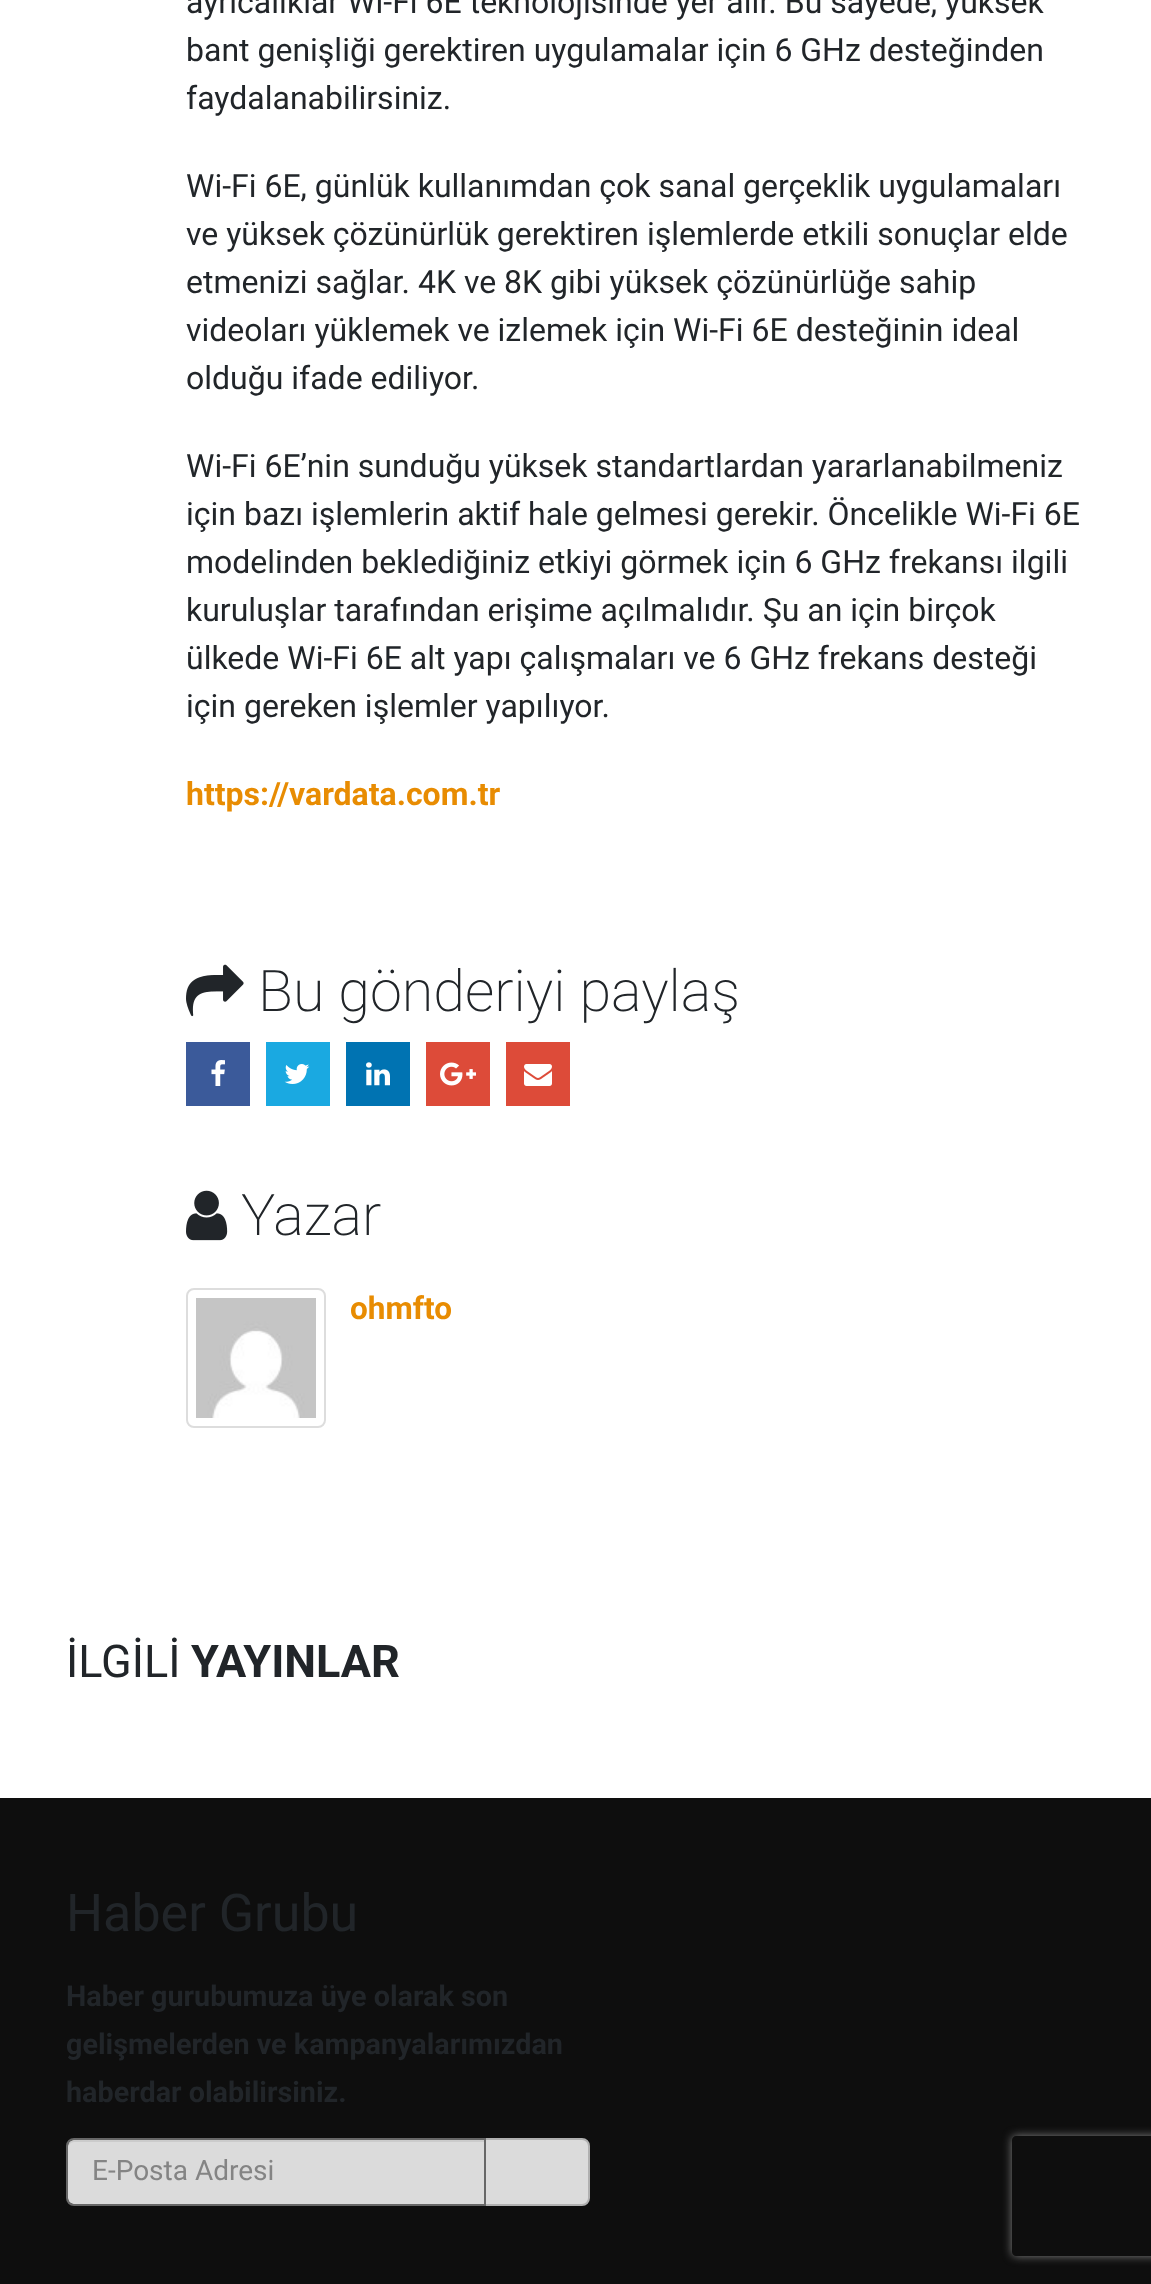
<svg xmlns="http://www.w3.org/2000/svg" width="1151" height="2284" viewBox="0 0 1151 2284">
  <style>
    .t1 { font: 32px Roboto; fill: #212529; }
    .t2 { font: bold 32px Roboto; fill: #e88c02; }
    .t3 { font: 200 57.5px Roboto; fill: #212529; }
    .t4 { font: bold 31.5px Roboto; fill: #e88c02; }
    .t5 { font: 45px Roboto; fill: #212529; }
    .t6 { font: bold 45px Roboto; fill: #212529; }
    .t7 { font: 52px Roboto; fill: #212529; }
    .t8 { font: bold 28.75px Roboto; fill: #212529; }
    .t9 { font: 28px Roboto; fill: #848484; }
  </style>
  <defs>
    <clipPath id="clip1"><path d="M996 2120H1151V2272H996ZM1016 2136H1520C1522 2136 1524 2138 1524 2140V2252C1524 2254 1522 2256 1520 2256H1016C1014 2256 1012 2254 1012 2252V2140C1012 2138 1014 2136 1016 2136Z" clip-rule="evenodd"/></clipPath>
  </defs>
  <rect width="100%" height="100%" fill="#fff"/>
  <text x="186" y="13" class="t1">ayrıcalıklar Wi-Fi 6E teknolojisinde yer alır. Bu sayede, yüksek</text>
  <text x="186" y="61" class="t1">bant genişliği gerektiren uygulamalar için 6 GHz desteğinden</text>
  <text x="186" y="109" class="t1">faydalanabilirsiniz.</text>
  <text x="186" y="197" class="t1">Wi-Fi 6E, günlük kullanımdan çok sanal gerçeklik uygulamaları</text>
  <text x="186" y="245" class="t1">ve yüksek çözünürlük gerektiren işlemlerde etkili sonuçlar elde</text>
  <text x="186" y="293" class="t1">etmenizi sağlar. 4K ve 8K gibi yüksek çözünürlüğe sahip</text>
  <text x="186" y="341" class="t1">videoları yüklemek ve izlemek için Wi-Fi 6E desteğinin ideal</text>
  <text x="186" y="389" class="t1">olduğu ifade ediliyor.</text>
  <text x="186" y="477" class="t1">Wi-Fi 6E’nin sunduğu yüksek standartlardan yararlanabilmeniz</text>
  <text x="186" y="525" class="t1">için bazı işlemlerin aktif hale gelmesi gerekir. Öncelikle Wi-Fi 6E</text>
  <text x="186" y="573" class="t1">modelinden beklediğiniz etkiyi görmek için 6 GHz frekansı ilgili</text>
  <text x="186" y="621" class="t1">kuruluşlar tarafından erişime açılmalıdır. Şu an için birçok</text>
  <text x="186" y="669" class="t1">ülkede Wi-Fi 6E alt yapı çalışmaları ve 6 GHz frekans desteği</text>
  <text x="186" y="717" class="t1">için gereken işlemler yapılıyor.</text>
  <text x="186" y="805" class="t2">https://vardata.com.tr</text>
  <image x="186" y="964" width="58" height="53" href="images/1.png"/>
  <text x="258" y="1011" class="t3">Bu gönderiyi paylaş</text>
  <rect x="186" y="1042" width="64" height="64" fill="#3b5a9a"/>
  <image x="211" y="1060" width="14" height="26" href="images/2.png"/>
  <rect x="266" y="1042" width="64" height="64" fill="#1aa9e1"/>
  <image x="284" y="1064" width="26" height="20" href="images/3.png"/>
  <rect x="346" y="1042" width="64" height="64" fill="#0073b2"/>
  <image x="366" y="1062" width="24" height="24" href="images/4.png"/>
  <rect x="426" y="1042" width="64" height="64" fill="#dd4b39"/>
  <image x="440" y="1062" width="36" height="24" href="images/5.png"/>
  <rect x="506" y="1042" width="64" height="64" fill="#dd4b39"/>
  <image x="524" y="1064" width="28" height="22" href="images/6.png"/>
  <image x="186" y="1190" width="42" height="51" href="images/7.png"/>
  <text x="241" y="1235" class="t3">Yazar</text>
  <rect x="187" y="1289" width="138" height="138" rx="7" fill="none" stroke="#ddd" stroke-width="2"/>
  <image x="196" y="1298" width="120" height="120" href="images/8.png"/>
  <text x="350" y="1319" class="t4">ohmfto</text>
  <text x="66" y="1677" class="t5">İLGİLİ</text>
  <text x="191" y="1677" class="t6">YAYINLAR</text>
  <rect x="0" y="1798" width="1151" height="486" fill="#0e0e0e"/>
  <text x="66" y="1931" class="t7">Haber Grubu</text>
  <text x="66" y="2006" class="t8">Haber gurubumuza üye olarak son</text>
  <text x="66" y="2054" class="t8">gelişmelerden ve kampanyalarımızdan</text>
  <text x="66" y="2102" class="t8">haberdar olabilirsiniz.</text>
  <path d="M74 2140H484V2204H74C70.5 2204 68 2201.5 68 2198V2146C68 2142.5 70.5 2140 74 2140Z" fill="#dbdbdb"/>
  <path d="M74 2142H484V2140H74C71 2140 68 2143 68 2146V2148C68 2145 71 2142 74 2142Z" fill="#02020212"/>
  <path d="M485 2139H582C586 2139 589 2142 589 2146V2198C589 2202 586 2205 582 2205H485Z" fill="#dbdbdb" stroke="#b0b0b0" stroke-width="2"/>
  <path d="M74 2139H485V2205H74C70 2205 67 2202 67 2198V2146C67 2142 70 2139 74 2139Z" fill="none" stroke="#676767" stroke-width="2"/>
  <text x="92" y="2180" class="t9">E-Posta Adresi</text>
  <g clip-path="url(#clip1)">
    <rect x="1012" y="2136" width="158" height="120" rx="4" fill="#808080" filter="blur(5px)"/>
  </g>
</svg>
